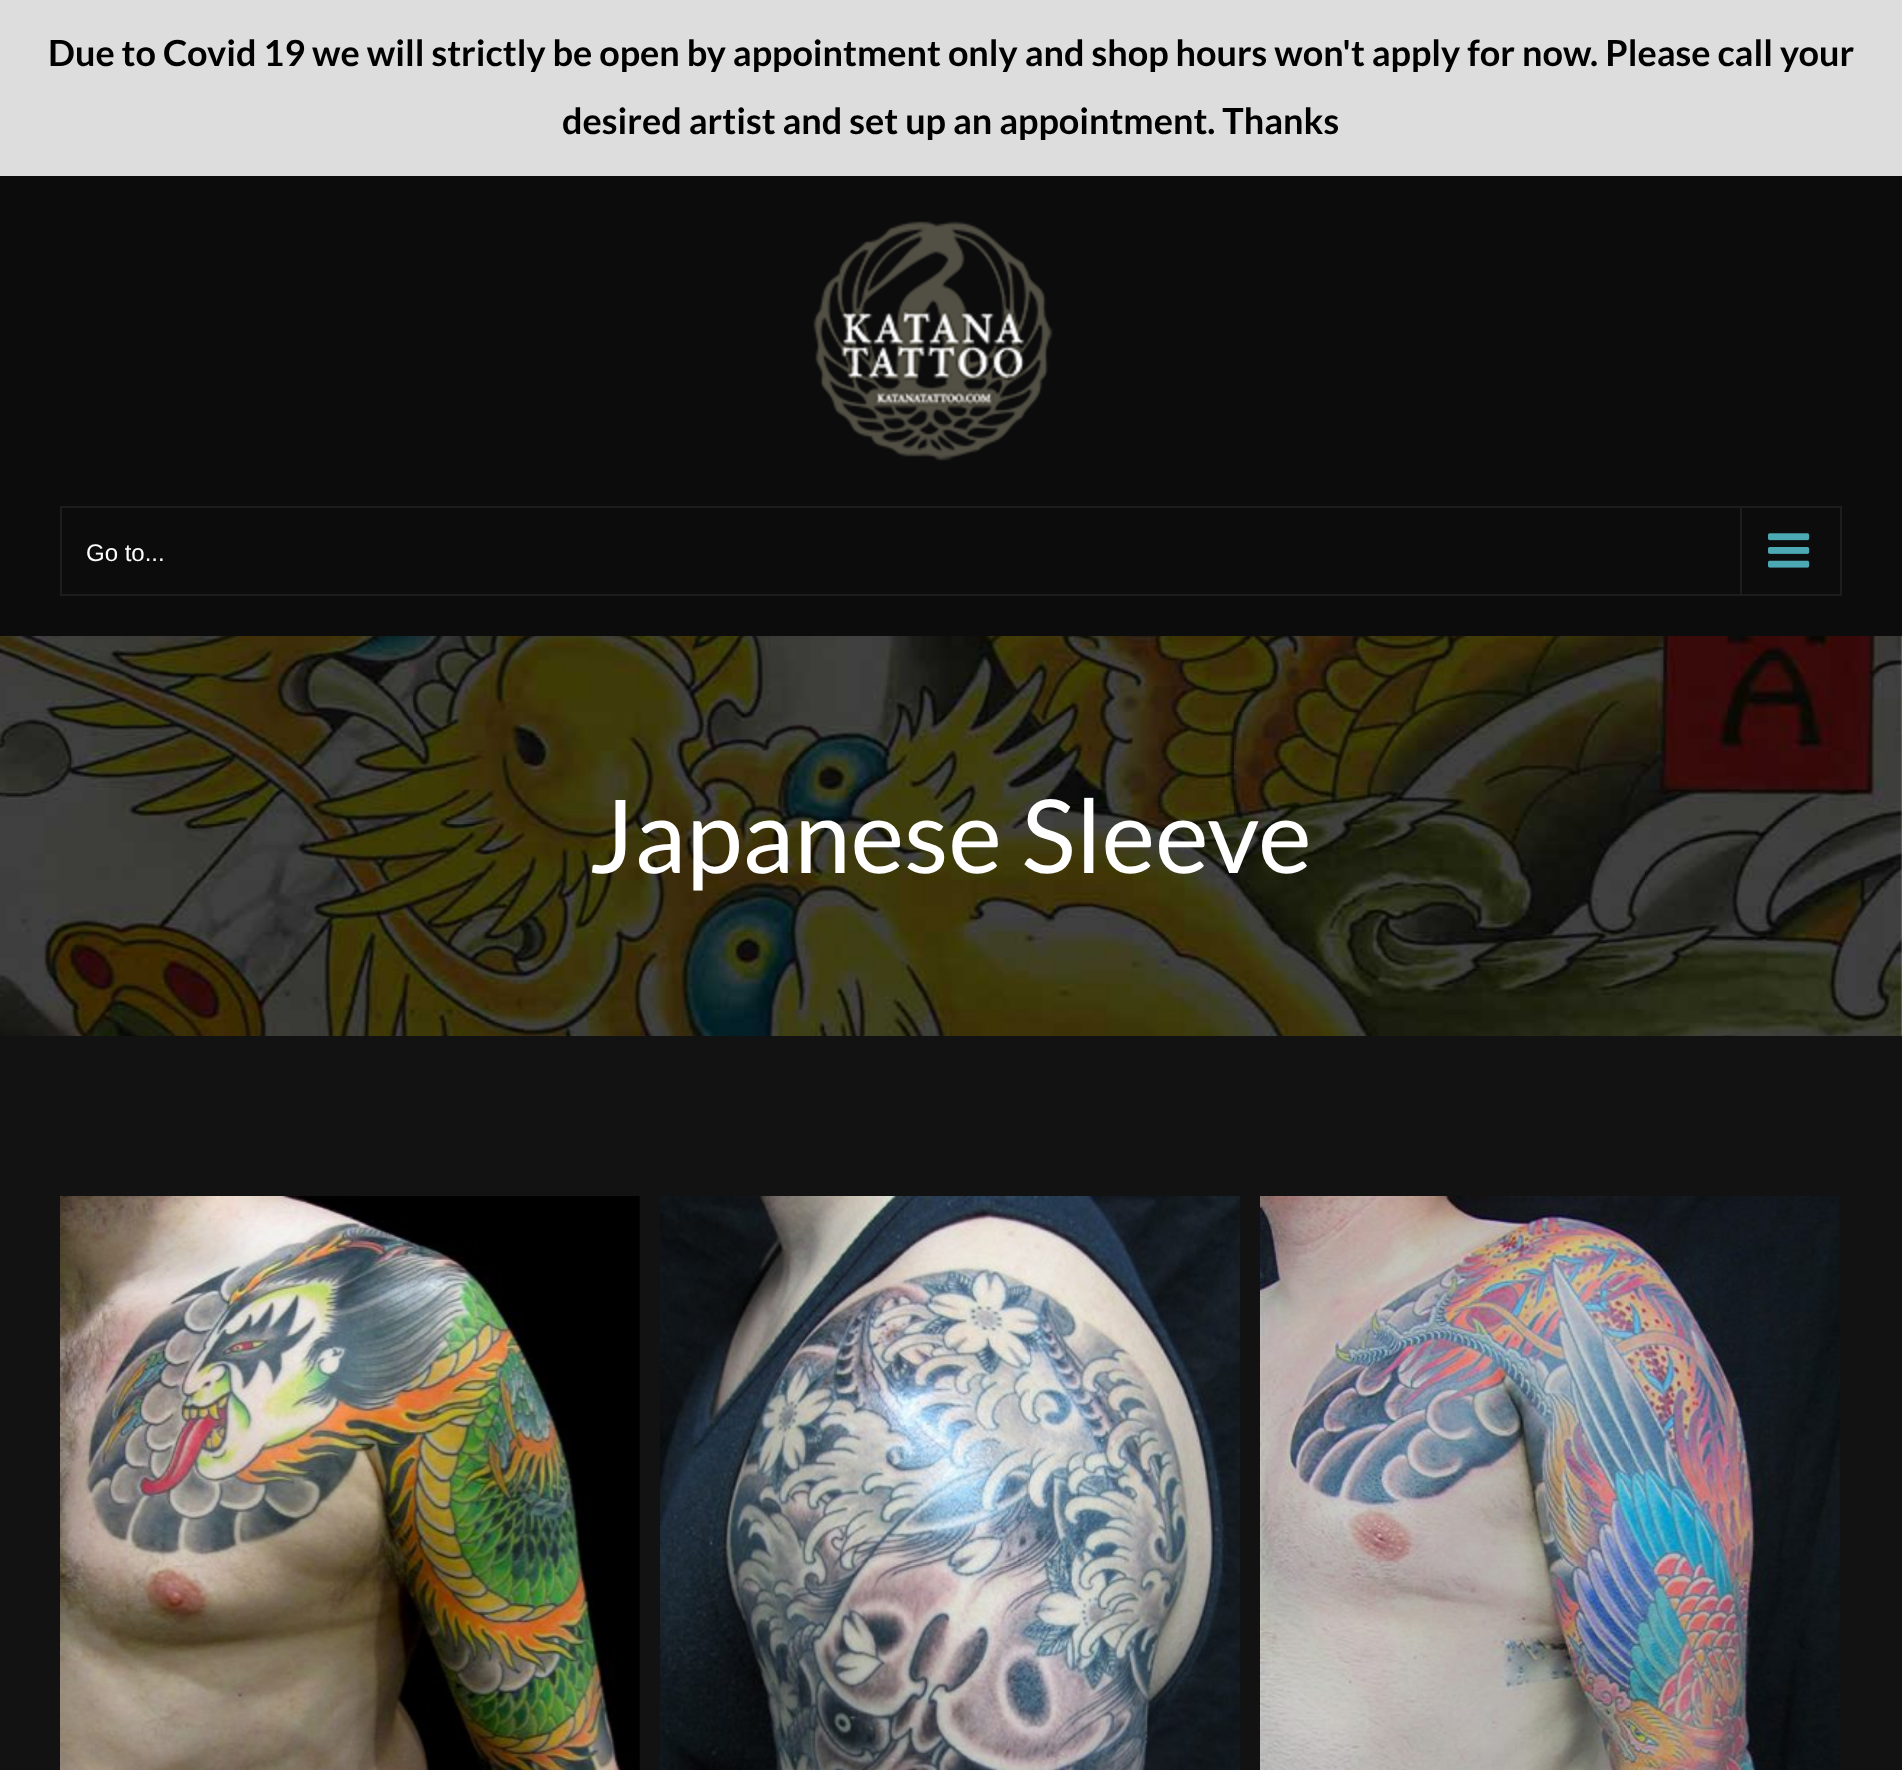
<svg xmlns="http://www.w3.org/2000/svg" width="1902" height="1770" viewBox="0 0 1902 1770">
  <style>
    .t1 { font: bold 36px Lato; fill: #000; }
    .t2 { font: 24px Liberation Sans; fill: #fff; }
    .t3 { font: 102px Lato; fill: #fff; }
  </style>
  <rect width="100%" height="100%" fill="#121213"/>
  <rect x="0" y="0" width="1902" height="176" fill="#ddd"/>
  <text x="48" y="66" class="t1">Due to Covid 19 we will strictly be open by appointment only and shop hours won't apply for now. Please call your</text>
  <text x="562" y="134" class="t1">desired artist and set up an appointment. Thanks</text>
  <rect x="0" y="176" width="1902" height="460" fill="#0c0c0d"/>
  <image x="813" y="221" width="240" height="240" href="images/1.png"/>
  <rect x="61" y="507" width="1780" height="88" fill="none" stroke="#1d1d1e" stroke-width="2"/>
  <text x="86" y="561" class="t2">Go to...</text>
  <rect x="1740" y="508" width="2" height="86" fill="#1d1d1e"/>
  <image x="1768" y="533" width="42" height="35" href="images/2.png"/>
  <rect x="1900" y="636" width="2" height="400" fill="#a0a0a0"/>
  <image x="0" y="636" width="1902" height="400" href="images/3.png"/>
  <text x="589" y="873" class="t3">Japanese Sleeve</text>
  <image x="60" y="1196" width="580" height="574" href="images/4.png"/>
  <image x="660" y="1196" width="580" height="574" href="images/5.png"/>
  <image x="1260" y="1196" width="580" height="574" href="images/6.png"/>
</svg>
